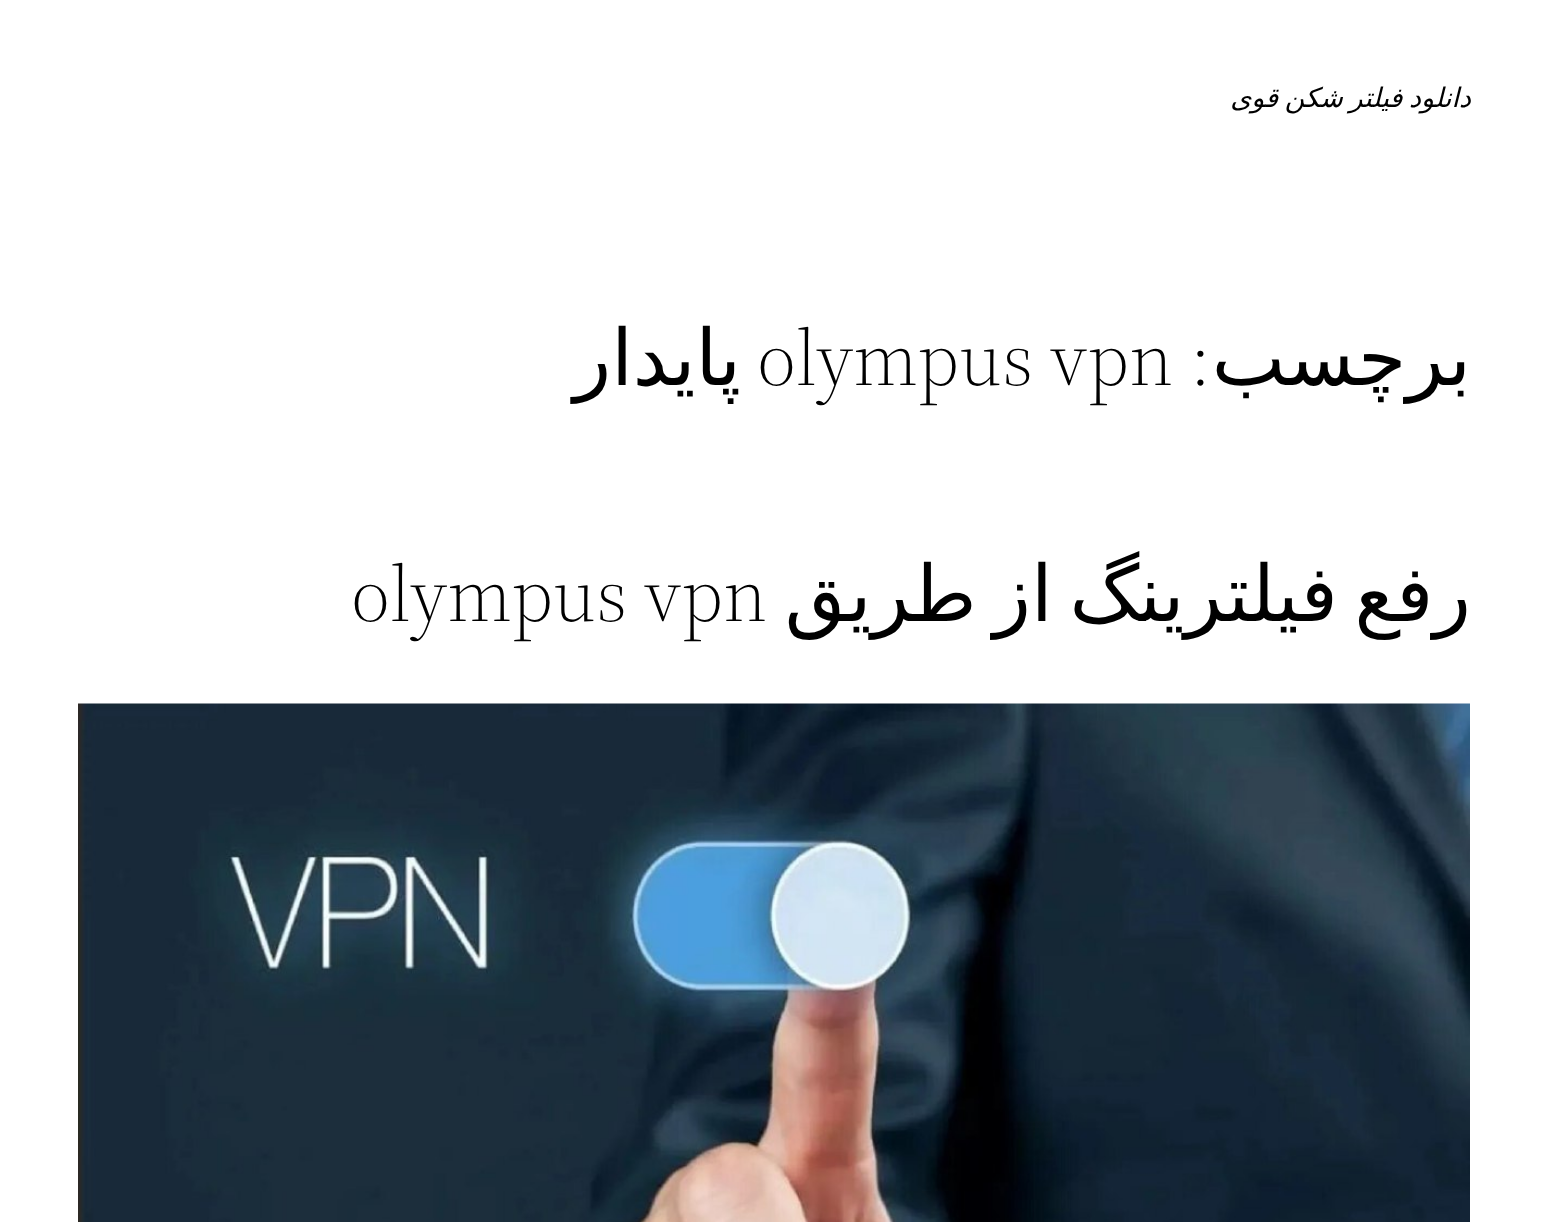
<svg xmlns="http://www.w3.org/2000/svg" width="1548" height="1222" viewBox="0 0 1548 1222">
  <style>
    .t1 { font: italic 27px DejaVu Sans; direction: rtl; fill: #000; }
    .t2 { font: 78px DejaVu Sans; direction: rtl; fill: #000; }
    .t3 { font: 300 78px 'Source Serif 4'; direction: rtl; fill: #000; }
    .t4 { font: 300 78px 'Source Serif 4'; fill: #000; }
  </style>
  <rect width="100%" height="100%" fill="#fff"/>
  <text x="1471" y="107" word-spacing="-2" class="t1">دانلود فیلتر شکن قوی</text>
  <text x="1471" y="385" class="t2">برچسب</text>
  <text x="1211" y="385" class="t3">:</text>
  <text x="757" y="385" class="t4">olympus vpn</text>
  <text x="741" y="385" class="t2">پایدار</text>
  <text x="1471" y="621" word-spacing="-8" class="t2">رفع فیلترینگ از طریق</text>
  <text x="351" y="621" class="t4">olympus vpn</text>
  <image x="78" y="703" width="1392" height="519" href="images/1.png"/>
</svg>
